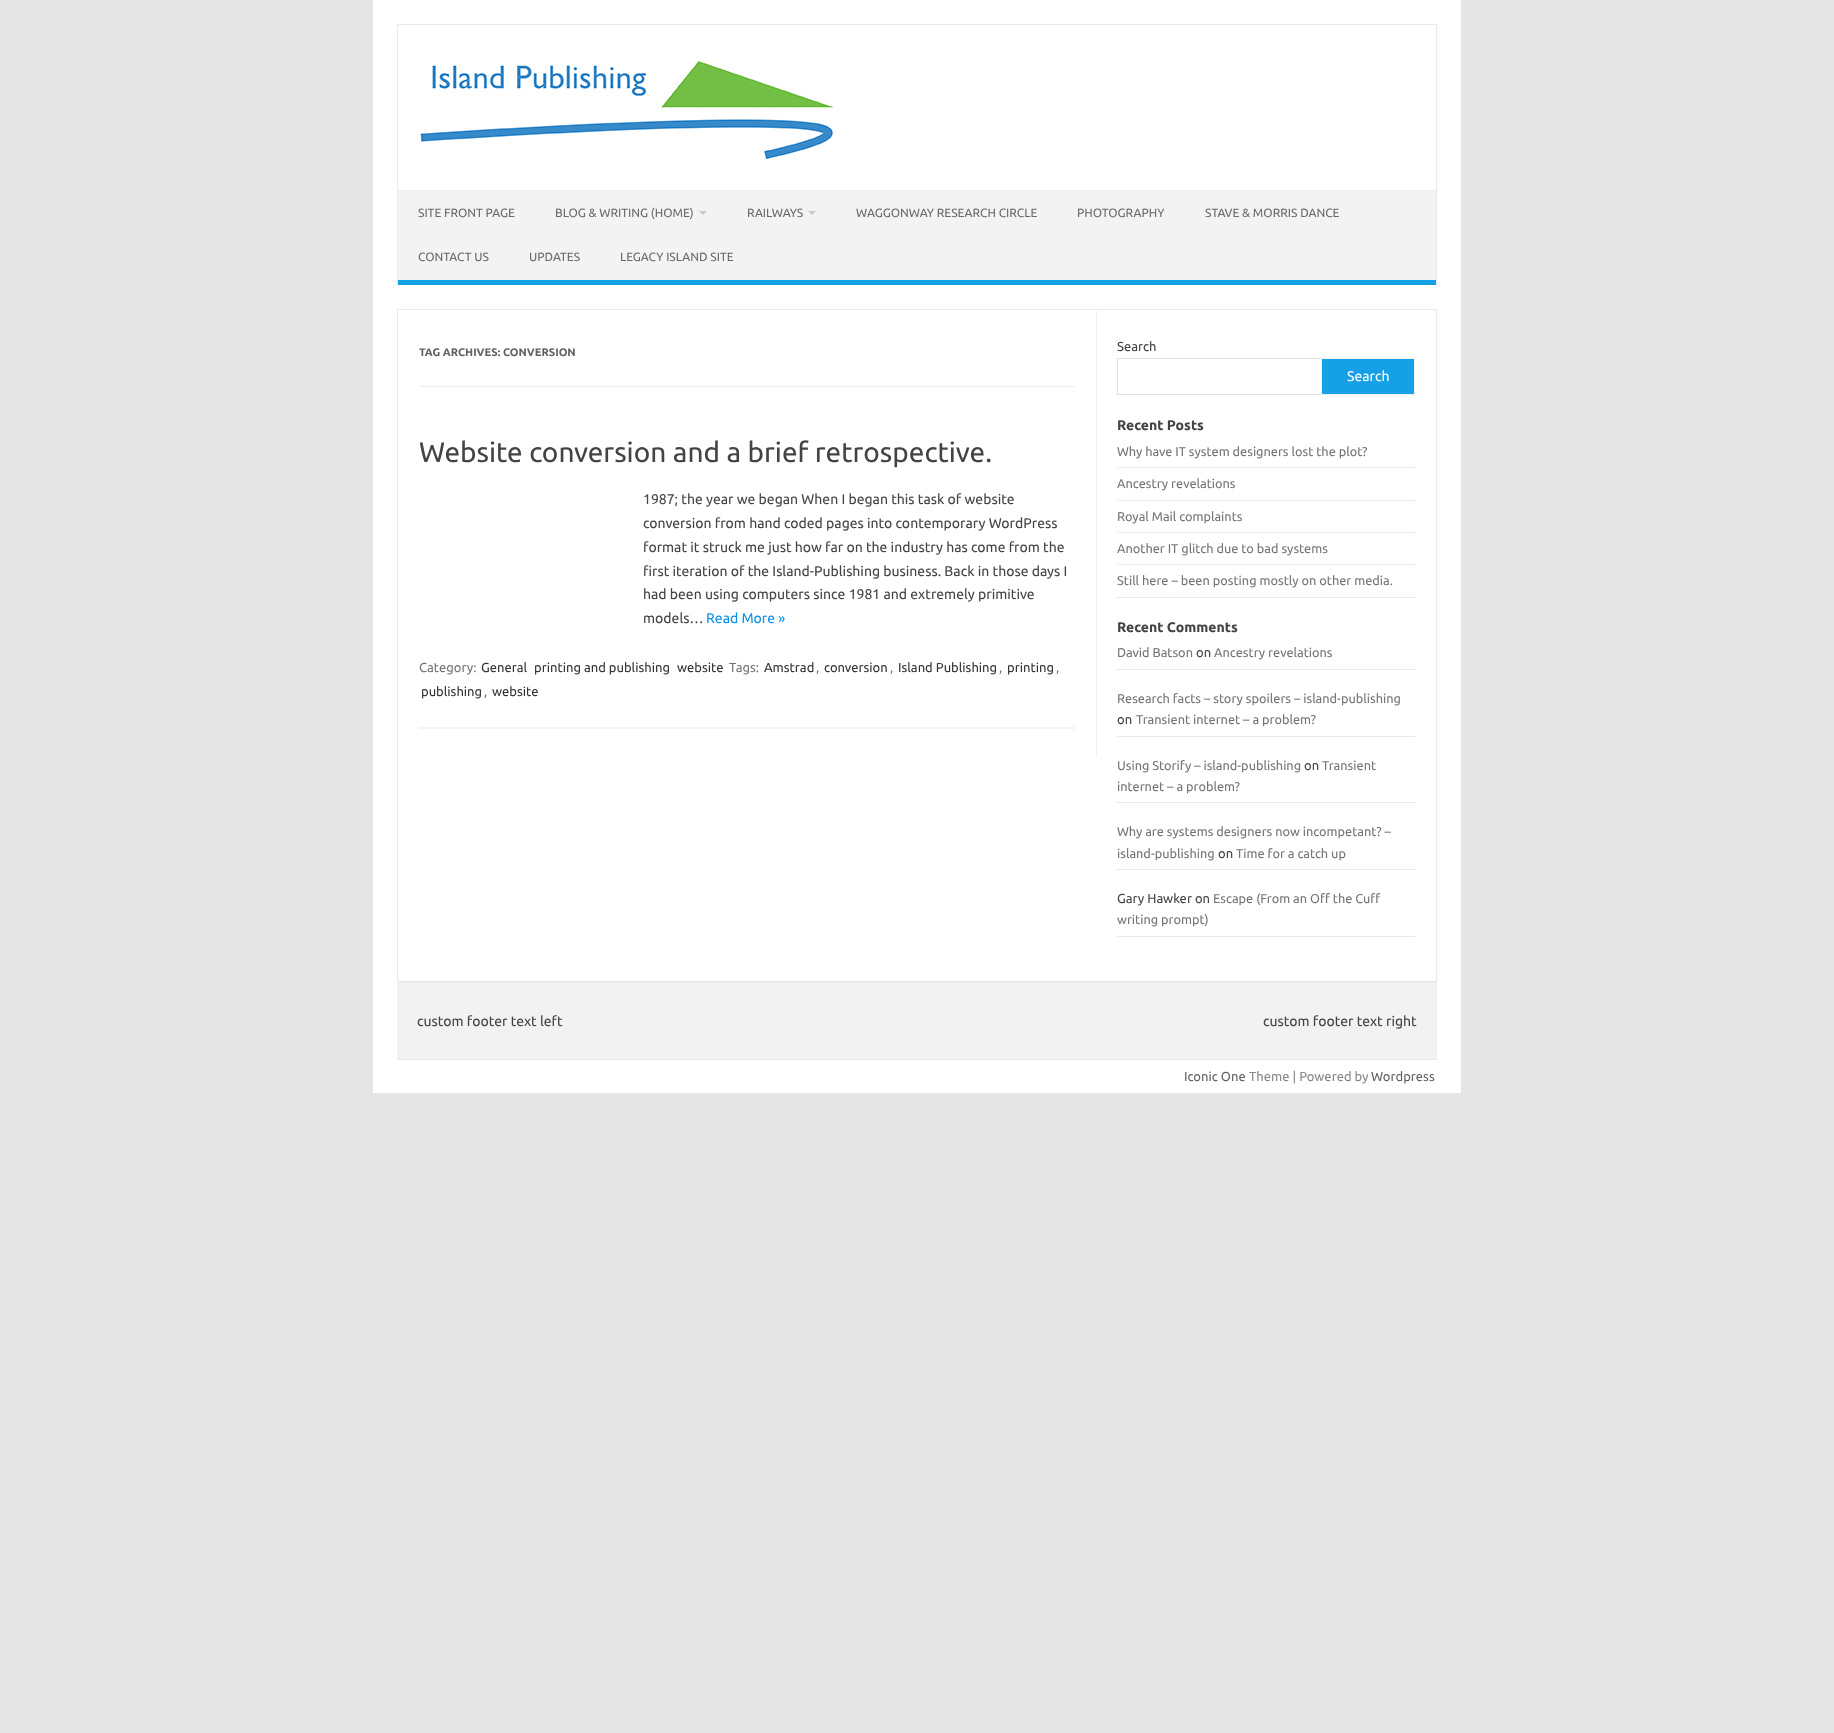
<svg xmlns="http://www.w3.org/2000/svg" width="1834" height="1733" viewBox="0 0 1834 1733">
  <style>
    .t1 { font: 12px Ubuntu; fill: #6a6a6a; }
    .t2 { font: bold 11px Ubuntu; fill: #636363; }
    .t3 { font: 28px Ubuntu; fill: #444; }
    .t4 { font: 14px Ubuntu; fill: #444; }
    .t5 { font: 14px Ubuntu; fill: #0b91ea; }
    .t6 { font: 13px Ubuntu; fill: #757575; }
    .t7 { font: 13px Ubuntu; fill: #333; }
    .t8 { font: 13px Ubuntu; fill: #444; }
    .t9 { font: 14px Ubuntu; fill: #fff; }
    .t10 { font: bold 14px Ubuntu; fill: #444; }
    .t11 { font: 12.75px Ubuntu; fill: #757575; }
    .t12 { font: 13px Ubuntu; fill: #636363; }
    .t13 { font: 13px Ubuntu; fill: #888; }
  </style>
  <rect width="100%" height="100%" fill="#e6e6e6"/>
  <rect x="373" y="0" width="1088" height="1093" fill="#fff"/>
  <rect x="397" y="24" width="1040" height="1" fill="#e9e9e9"/>
  <rect x="1436" y="24" width="1" height="261" fill="#e9e9e9"/>
  <rect x="397" y="24" width="1" height="261" fill="#e9e9e9"/>
  <image x="420" y="61" width="414" height="99" href="images/1.png"/>
  <rect x="398" y="191" width="1038" height="89" fill="#f3f3f3"/>
  <rect x="398" y="190" width="1038" height="1" fill="#ededed"/>
  <rect x="398" y="280" width="1038" height="5" fill="#16a1e7"/>
  <text x="418" y="217" class="t1">SITE FRONT PAGE</text>
  <text x="555" y="217" class="t1">BLOG &amp; WRITING (HOME)</text>
  <path d="M699 211H707L703 215Z" fill="#c9c9c9"/>
  <text x="747" y="217" class="t1">RAILWAYS</text>
  <path d="M808 211H816L812 215Z" fill="#c9c9c9"/>
  <text x="856" y="217" class="t1">WAGGONWAY RESEARCH CIRCLE</text>
  <text x="1077" y="217" class="t1">PHOTOGRAPHY</text>
  <text x="1205" y="217" class="t1">STAVE &amp; MORRIS DANCE</text>
  <text x="418" y="261" class="t1">CONTACT US</text>
  <text x="529" y="261" class="t1">UPDATES</text>
  <text x="620" y="261" class="t1">LEGACY ISLAND SITE</text>
  <rect x="397.5" y="309.5" width="1039" height="672" fill="none" stroke="#e9e9e9"/>
  <rect x="1096" y="310" width="1" height="447" fill="#f1f1f1"/>
  <rect x="419" y="386" width="656" height="1" fill="#ededed"/>
  <text x="419" y="356" class="t2">TAG ARCHIVES: CONVERSION</text>
  <rect x="419" y="727" width="656" height="2" fill="#f3f3f3"/>
  <text x="419" y="462" class="t3">Website conversion and a brief retrospective.</text>
  <text x="643" y="504" class="t4">1987; the year we began When I began this task of website</text>
  <text x="643" y="528" class="t4">conversion from hand coded pages into contemporary WordPress</text>
  <text x="643" y="552" class="t4">format it struck me just how far on the industry has come from the</text>
  <text x="643" y="576" class="t4">first iteration of the Island-Publishing business. Back in those days I</text>
  <text x="643" y="599" class="t4">had been using computers since 1981 and extremely primitive</text>
  <text x="643" y="623" class="t4">models…</text>
  <text x="706" y="623" class="t5">Read More »</text>
  <text x="419" y="672" class="t6">Category:</text>
  <text x="481" y="672" class="t7">General</text>
  <text x="534" y="672" class="t7">printing and publishing</text>
  <text x="677" y="672" class="t7">website</text>
  <text x="729" y="672" class="t6">Tags:</text>
  <text x="764" y="672" class="t7">Amstrad</text>
  <text x="816" y="672" class="t6">,</text>
  <text x="824" y="672" class="t7">conversion</text>
  <text x="890" y="672" class="t6">,</text>
  <text x="898" y="672" class="t7">Island Publishing</text>
  <text x="999" y="672" class="t6">,</text>
  <text x="1007" y="672" class="t7">printing</text>
  <text x="1056" y="672" class="t6">,</text>
  <text x="421" y="696" class="t7">publishing</text>
  <text x="484" y="696" class="t6">,</text>
  <text x="492" y="696" class="t7">website</text>
  <text x="1117" y="351" class="t8">Search</text>
  <rect x="1117.5" y="358.5" width="204" height="36" fill="none" stroke="#e1e1e1"/>
  <rect x="1321.5" y="358.5" width="93" height="36" fill="#16a1e7" stroke="#f1f1f1"/>
  <text x="1347" y="381" class="t9">Search</text>
  <text x="1117" y="430" class="t10">Recent Posts</text>
  <rect x="1117" y="467" width="298" height="1" fill="#e9e9e9"/>
  <text x="1117" y="456" class="t11">Why have IT system designers lost the plot?</text>
  <rect x="1117" y="500" width="298" height="1" fill="#e9e9e9"/>
  <text x="1117" y="488" class="t11">Ancestry revelations</text>
  <rect x="1117" y="532" width="298" height="1" fill="#e9e9e9"/>
  <text x="1117" y="521" class="t11">Royal Mail complaints</text>
  <rect x="1117" y="564" width="298" height="1" fill="#e9e9e9"/>
  <text x="1117" y="553" class="t11">Another IT glitch due to bad systems</text>
  <rect x="1117" y="597" width="298" height="1" fill="#e9e9e9"/>
  <text x="1117" y="585" class="t11">Still here – been posting mostly on other media.</text>
  <text x="1117" y="632" class="t10">Recent Comments</text>
  <rect x="1117" y="669" width="298" height="1" fill="#e9e9e9"/>
  <text x="1117" y="657" class="t11">David Batson</text>
  <text x="1196" y="657" class="t8">on</text>
  <text x="1214" y="657" class="t11">Ancestry revelations</text>
  <rect x="1117" y="736" width="298" height="1" fill="#e9e9e9"/>
  <text x="1117" y="703" class="t11">Research facts – story spoilers – island-publishing</text>
  <text x="1117" y="724" class="t8">on</text>
  <text x="1136" y="724" class="t11">Transient internet – a problem?</text>
  <rect x="1117" y="802" width="298" height="1" fill="#e9e9e9"/>
  <text x="1117" y="770" class="t11">Using Storify – island-publishing</text>
  <text x="1304" y="770" class="t8">on</text>
  <text x="1322" y="770" class="t11">Transient</text>
  <text x="1117" y="791" class="t11">internet – a problem?</text>
  <rect x="1117" y="869" width="298" height="1" fill="#e9e9e9"/>
  <text x="1117" y="836" class="t11">Why are systems designers now incompetant? –</text>
  <text x="1117" y="858" class="t11">island-publishing</text>
  <text x="1218" y="858" class="t8">on</text>
  <text x="1236" y="858" class="t11">Time for a catch up</text>
  <rect x="1117" y="936" width="298" height="1" fill="#e9e9e9"/>
  <text x="1117" y="903" class="t8">Gary Hawker on</text>
  <text x="1213" y="903" class="t11">Escape (From an Off the Cuff</text>
  <text x="1117" y="924" class="t11">writing prompt)</text>
  <rect x="397" y="983" width="1040" height="76" fill="#f2f2f2"/>
  <rect x="397" y="982" width="1040" height="1" fill="#ededed"/>
  <rect x="397" y="1059" width="1040" height="1" fill="#e9e9e9"/>
  <text x="417" y="1026" class="t4">custom footer text left</text>
  <text x="1263" y="1026" class="t4">custom footer text right</text>
  <text x="1184" y="1081" class="t12">Iconic One</text>
  <text x="1249" y="1081" class="t13">Theme | Powered by</text>
  <text x="1371" y="1081" class="t12">Wordpress</text>
</svg>
